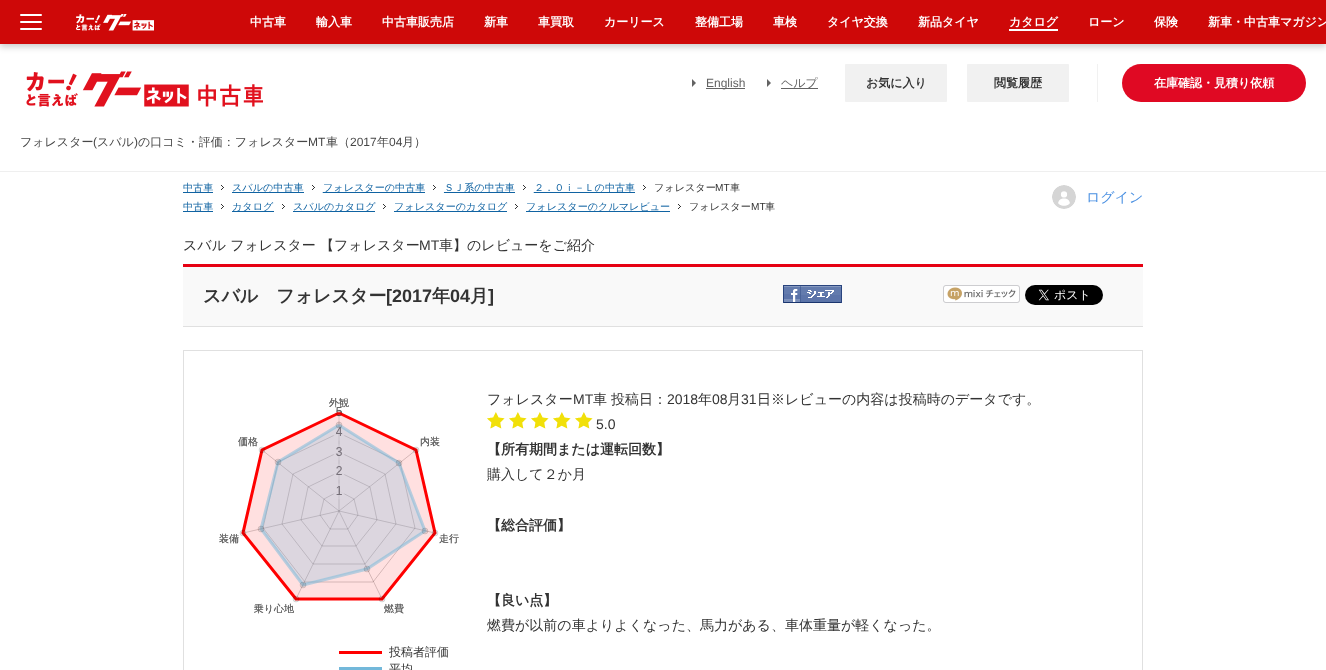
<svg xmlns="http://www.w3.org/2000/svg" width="1326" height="670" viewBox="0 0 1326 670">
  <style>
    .t1 { font: bold 12px WenQuanYi Zen Hei; fill: #fff; }
    .t2 { font: 12px Liberation Sans; fill: #636363; }
    .t3 { font: 500 12px WenQuanYi Zen Hei; fill: #636363; }
    .t4 { font: bold 12px WenQuanYi Zen Hei; fill: #333; }
    .t5 { font: 500 12px WenQuanYi Zen Hei; fill: #474747; }
    .t6 { font: 12px Liberation Sans; fill: #474747; }
    .t7 { font: 500 10.1px WenQuanYi Zen Hei; fill: #1063a2; }
    .t8 { font: 500 10.1px WenQuanYi Zen Hei; fill: #333; }
    .t9 { font: 10.1px Liberation Sans; fill: #333; }
    .t10 { font: 500 14px WenQuanYi Zen Hei; fill: #4a90e2; }
    .t11 { font: 500 14px WenQuanYi Zen Hei; fill: #333; }
    .t12 { font: 14px Liberation Sans; fill: #333; }
    .t13 { font: bold 18px WenQuanYi Zen Hei; fill: #333; }
    .t14 { font: bold 18px Liberation Sans; fill: #333; }
    .t15 { font: bold 14px WenQuanYi Zen Hei; fill: #333; }
    .t16 { font: 500 12px WenQuanYi Zen Hei; fill: #333; }
  </style>
  <rect width="100%" height="100%" fill="#fff"/>
  <rect x="0" y="3" width="1326" height="44" fill="#00000033" filter="blur(3px)"/>
  <rect x="0" y="0" width="1326" height="44" fill="#ce0808"/>
  <rect x="20" y="14" width="22" height="2" rx="1" fill="#fff"/>
  <rect x="20" y="21" width="22" height="2" rx="1" fill="#fff"/>
  <rect x="20" y="28" width="22" height="2" rx="1" fill="#fff"/>
  <image x="76" y="14" width="78" height="17" href="images/1.png"/>
  <text x="250" y="26" class="t1">中古車</text>
  <text x="316" y="26" class="t1">輸入車</text>
  <text x="382" y="26" class="t1">中古車販売店</text>
  <text x="484" y="26" class="t1">新車</text>
  <text x="538" y="26" class="t1">車買取</text>
  <text x="604" y="26" class="t1">カーリース</text>
  <text x="695" y="26" class="t1">整備工場</text>
  <text x="773" y="26" class="t1">車検</text>
  <text x="827" y="26" class="t1">タイヤ交換</text>
  <text x="918" y="26" class="t1">新品タイヤ</text>
  <text x="1009" y="26" class="t1">カタログ</text>
  <rect x="1009" y="29" width="49" height="2" fill="#fff"/>
  <text x="1088" y="26" class="t1">ローン</text>
  <text x="1154" y="26" class="t1">保険</text>
  <text x="1208" y="26" class="t1">新車・中古車マガジン</text>
  <rect x="0" y="171" width="1326" height="1" fill="#efefef"/>
  <path d="M692 87V79L696 83Z" fill="#636363"/>
  <rect x="706" y="88" width="39" height="1" fill="#636363"/>
  <text x="706" y="87" class="t2">English</text>
  <path d="M767 87V79L771 83Z" fill="#636363"/>
  <rect x="781" y="88" width="37" height="1" fill="#636363"/>
  <text x="781" y="87" class="t3">ヘルプ</text>
  <rect x="845" y="64" width="102" height="38" rx="1" fill="#f1f1f1"/>
  <text x="866" y="87" class="t4">お気に入り</text>
  <rect x="967" y="64" width="102" height="38" rx="1" fill="#f1f1f1"/>
  <text x="994" y="87" class="t4">閲覧履歴</text>
  <rect x="1097" y="64" width="1" height="38" fill="#f1f1f1"/>
  <rect x="1122" y="64" width="184" height="38" rx="19" fill="#e00923"/>
  <text x="1154" y="87" class="t1">在庫確認・見積り依頼</text>
  <image x="26" y="71" width="237" height="36" href="images/2.png"/>
  <text x="20" y="146" class="t5">フォレスター</text>
  <text x="93" y="146" class="t6">(</text>
  <text x="97" y="146" class="t5">スバル</text>
  <text x="134" y="146" class="t6">)</text>
  <text x="138" y="146" class="t5">の口コミ・評価：フォレスター</text>
  <text x="308" y="146" class="t6">MT</text>
  <text x="326" y="146" class="t5">車（</text>
  <text x="350" y="146" class="t6">2017</text>
  <text x="377" y="146" class="t5">年</text>
  <text x="389" y="146" class="t6">04</text>
  <text x="402" y="146" class="t5">月）</text>
  <rect x="183" y="192" width="30" height="1" fill="#1063a2"/>
  <text x="183" y="191" class="t7">中古車</text>
  <image x="221" y="185" width="3" height="5" href="images/3.png"/>
  <rect x="232" y="192" width="72" height="1" fill="#1063a2"/>
  <text x="232" y="191" class="t7">スバルの中古車</text>
  <image x="312" y="185" width="11" height="8" href="images/4.png"/>
  <rect x="323" y="192" width="102" height="1" fill="#1063a2"/>
  <text x="323" y="191" class="t7">フォレスターの中古車</text>
  <image x="433" y="185" width="11" height="8" href="images/5.png"/>
  <rect x="444" y="192" width="71" height="1" fill="#1063a2"/>
  <text x="444" y="191" class="t7">ＳＪ系の中古車</text>
  <image x="523" y="185" width="11" height="8" href="images/4.png"/>
  <rect x="534" y="192" width="101" height="1" fill="#1063a2"/>
  <text x="534" y="191" class="t7">２．０ｉ－Ｌの中古車</text>
  <image x="643" y="185" width="3" height="5" href="images/3.png"/>
  <text x="654" y="191" class="t8">フォレスター</text>
  <text x="715" y="191" class="t9">MT</text>
  <text x="730" y="191" class="t8">車</text>
  <rect x="183" y="211" width="30" height="1" fill="#1063a2"/>
  <text x="183" y="210" class="t7">中古車</text>
  <image x="221" y="204" width="3" height="5" href="images/3.png"/>
  <rect x="232" y="211" width="42" height="1" fill="#1063a2"/>
  <text x="232" y="210" class="t7">カタログ</text>
  <image x="282" y="204" width="3" height="5" href="images/3.png"/>
  <rect x="293" y="211" width="82" height="1" fill="#1063a2"/>
  <text x="293" y="210" class="t7">スバルのカタログ</text>
  <image x="383" y="204" width="3" height="5" href="images/3.png"/>
  <rect x="394" y="211" width="113" height="1" fill="#1063a2"/>
  <text x="394" y="210" class="t7">フォレスターのカタログ</text>
  <image x="515" y="204" width="3" height="5" href="images/3.png"/>
  <rect x="526" y="211" width="144" height="1" fill="#1063a2"/>
  <text x="526" y="210" class="t7">フォレスターのクルマレビュー</text>
  <image x="678" y="204" width="3" height="5" href="images/3.png"/>
  <text x="689" y="210" class="t8">フォレスター</text>
  <text x="751" y="210" class="t9">MT</text>
  <text x="765" y="210" class="t8">車</text>
  <image x="1052" y="185" width="24" height="24" href="images/6.png"/>
  <text x="1086" y="202" class="t10">ログイン</text>
  <text x="183" y="250" class="t11">スバル フォレスター 【フォレスター</text>
  <text x="419" y="250" class="t12">MT</text>
  <text x="439" y="250" class="t11">車】のレビューをご紹介</text>
  <rect x="183" y="267" width="960" height="59" fill="#f9f9f9"/>
  <rect x="183" y="264" width="960" height="3" fill="#e60012"/>
  <rect x="183" y="326" width="960" height="1" fill="#e0e0e0"/>
  <text x="203" y="302" class="t13">スバル　フォレスター</text>
  <text x="386" y="302" class="t14">[2017</text>
  <text x="432" y="302" class="t13">年</text>
  <text x="450" y="302" class="t14">04</text>
  <text x="470" y="302" class="t13">月</text>
  <text x="488" y="302" class="t14">]</text>
  <image x="783" y="285" width="59" height="18" href="images/7.png"/>
  <image x="943" y="285" width="77" height="18" href="images/8.png"/>
  <image x="1025" y="285" width="78" height="20" href="images/9.png"/>
  <rect x="183.5" y="350.5" width="959" height="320" fill="none" stroke="#e0e0e0"/>
  <text x="487" y="404" class="t11">フォレスター</text>
  <text x="573" y="404" class="t12">MT</text>
  <text x="593" y="404" class="t11">車</text>
  <text x="611" y="404" class="t11">投稿日：</text>
  <text x="667" y="404" class="t12">2018</text>
  <text x="698" y="404" class="t11">年</text>
  <text x="712" y="404" class="t12">08</text>
  <text x="727" y="404" class="t11">月</text>
  <text x="741" y="404" class="t12">31</text>
  <text x="757" y="404" class="t11">日※レビューの内容は投稿時のデータです。</text>
  <image x="487" y="412" width="18" height="17" href="images/10.png"/>
  <image x="509" y="412" width="18" height="17" href="images/10.png"/>
  <image x="531" y="412" width="18" height="17" href="images/10.png"/>
  <image x="553" y="412" width="18" height="17" href="images/10.png"/>
  <image x="575" y="412" width="18" height="17" href="images/10.png"/>
  <text x="596" y="429" class="t12">5.0</text>
  <text x="487" y="454" class="t15">【所有期間または運転回数】</text>
  <text x="487" y="479" class="t11">購入して２か月</text>
  <text x="487" y="530" class="t15">【総合評価】</text>
  <text x="487" y="605" class="t15">【良い点】</text>
  <text x="487" y="630" class="t11">燃費が以前の車よりよくなった、馬力がある、車体重量が軽くなった。</text>
  <image x="219" y="398" width="240" height="216" href="images/11.png"/>
  <rect x="339" y="651" width="43" height="3" fill="#f00"/>
  <text x="389" y="656" class="t16">投稿者評価</text>
  <rect x="339" y="667" width="43" height="3" fill="#73b8da"/>
  <text x="389" y="673" class="t16">平均</text>
</svg>
